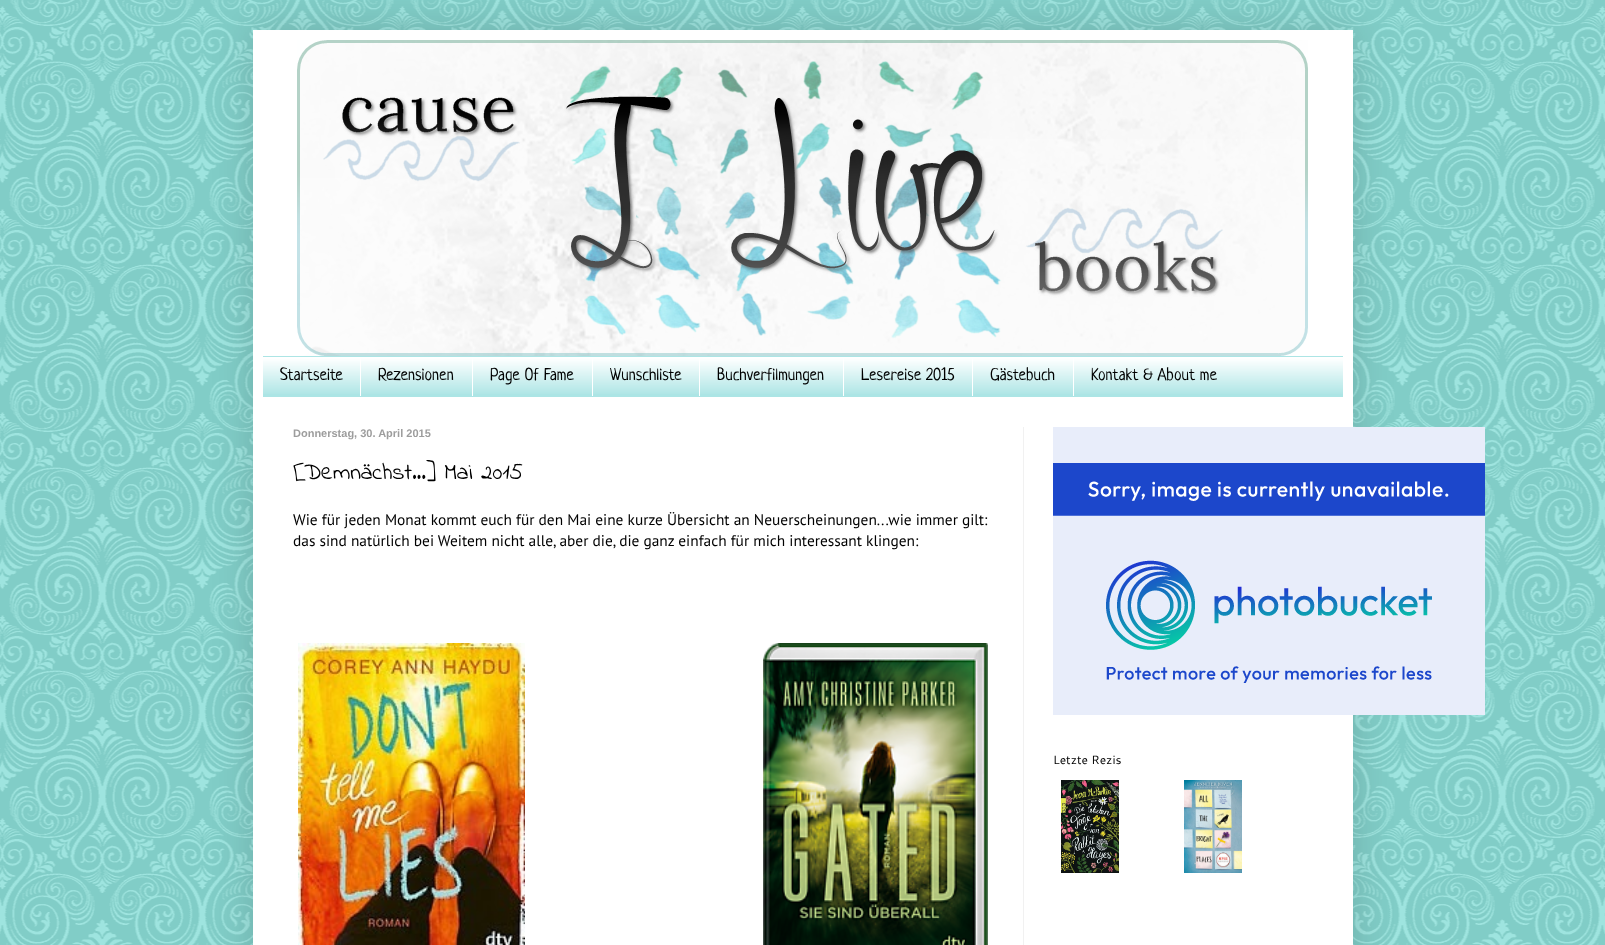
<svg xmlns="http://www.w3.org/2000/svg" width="1605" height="945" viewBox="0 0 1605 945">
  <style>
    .t1 { font: 17px Neucha; fill: #000; }
    .t2 { font: bold 11px Liberation Sans; fill: #9d9d9d; }
    .t3 { font: 23px Indie Flower; fill: #000; }
    .t4 { font: 15.4px PT Sans; fill: #000; }
    .t5 { font: 12px Cantarell; fill: #000; }
  </style>
  <rect width="100%" height="100%" fill="#a1fff8"/>
  <image x="0" y="400" width="1605" height="545" href="images/1.png"/>
  <image x="0" y="0" width="1605" height="400" href="images/2.png"/>
  <rect x="253" y="30" width="1100" height="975" fill="#00000026" filter="blur(20px)"/>
  <rect x="253" y="30" width="1100" height="915" fill="#fff"/>
  <image x="297" y="40" width="1011" height="316" href="images/3.png"/>
  <rect x="263" y="356" width="1080" height="41" fill="#ace5e5"/>
  <image x="263" y="357" width="1080" height="37" href="images/4.png"/>
  <text x="280" y="380" class="t1">Startseite</text>
  <rect x="360" y="357" width="1" height="39" fill="#fff"/>
  <text x="378" y="380" class="t1">Rezensionen</text>
  <rect x="472" y="357" width="1" height="39" fill="#fff"/>
  <text x="490" y="380" class="t1">Page Of Fame</text>
  <rect x="592" y="357" width="1" height="39" fill="#fff"/>
  <text x="610" y="380" class="t1">Wunschliste</text>
  <rect x="699" y="357" width="1" height="39" fill="#fff"/>
  <text x="717" y="380" class="t1">Buchverfilmungen</text>
  <rect x="843" y="357" width="1" height="39" fill="#fff"/>
  <text x="861" y="380" class="t1">Lesereise 2015</text>
  <rect x="972" y="357" width="1" height="39" fill="#fff"/>
  <text x="990" y="380" class="t1">Gästebuch</text>
  <rect x="1073" y="357" width="1" height="39" fill="#fff"/>
  <text x="1091" y="380" class="t1">Kontakt &amp; About me</text>
  <rect x="1023" y="427" width="1" height="518" fill="#f1f1f1"/>
  <text x="293" y="437" class="t2">Donnerstag, 30. April 2015</text>
  <text x="293" y="479" class="t3">[Demnächst...] Mai 2015</text>
  <text x="293" y="525" class="t4">Wie für jeden Monat kommt euch für den Mai eine kurze Übersicht an Neuerscheinungen...wie immer gilt:</text>
  <text x="293" y="546" class="t4">das sind natürlich bei Weitem nicht alle, aber die, die ganz einfach für mich interessant klingen:</text>
  <image x="298" y="643" width="227" height="302" href="images/5.png"/>
  <image x="763" y="643" width="225" height="302" href="images/6.png"/>
  <image x="1053" y="427" width="432" height="288" href="images/7.png"/>
  <text x="1053" y="764" class="t5">Letzte Rezis</text>
  <image x="1061" y="780" width="58" height="93" href="images/8.png"/>
  <image x="1184" y="780" width="58" height="93" href="images/9.png"/>
</svg>
